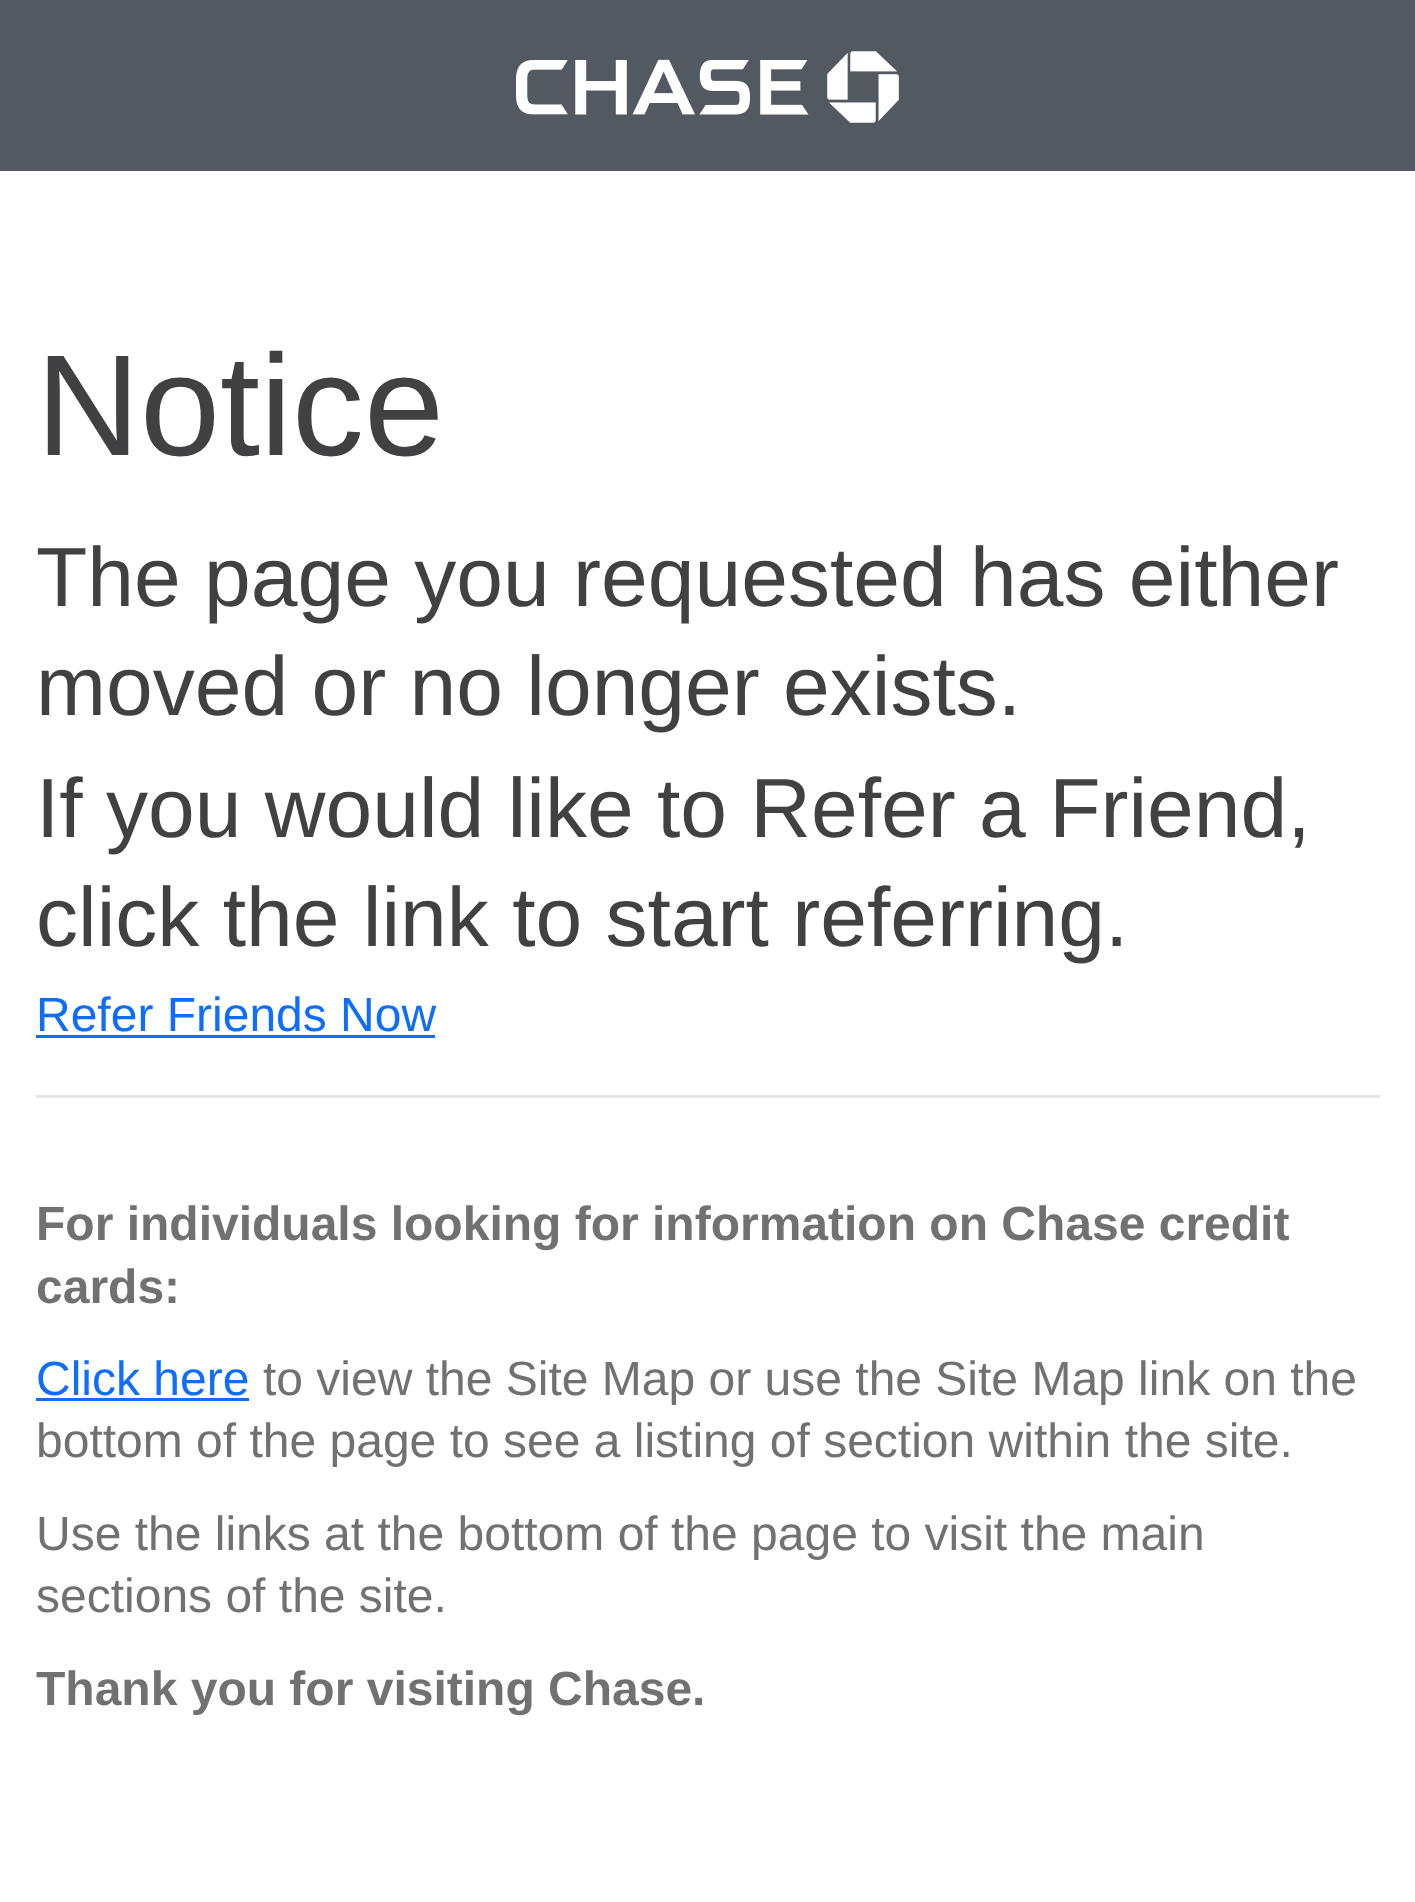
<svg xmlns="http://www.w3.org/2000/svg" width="1415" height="1902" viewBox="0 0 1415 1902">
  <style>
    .t1 { font: 144px Liberation Sans; fill: #414042; }
    .t2 { font: 84px Liberation Sans; fill: #414042; }
    .t3 { font: 48px Liberation Sans; fill: #0e6dfa; }
    .t4 { font: bold 48px Liberation Sans; fill: #717171; }
    .t5 { font: 48px Liberation Sans; fill: #717171; }
  </style>
  <rect width="100%" height="100%" fill="#fff"/>
  <rect x="0" y="0" width="1415" height="171" fill="#535960"/>
  <image x="516" y="51" width="383" height="72" href="images/1.png"/>
  <text x="36" y="455" class="t1">Notice</text>
  <text x="36" y="606" class="t2">The page you requested has either</text>
  <text x="36" y="715" class="t2">moved or no longer exists.</text>
  <text x="36" y="837" class="t2">If you would like to Refer a Friend,</text>
  <text x="36" y="946" class="t2">click the link to start referring.</text>
  <text x="36" y="1031" class="t3">Refer Friends Now</text>
  <rect x="36" y="1035" width="399" height="3" fill="#0e6dfa"/>
  <rect x="36" y="1095" width="1344" height="3" fill="#e6e6e6"/>
  <text x="36" y="1240" class="t4">For individuals looking for information on Chase credit</text>
  <text x="36" y="1303" class="t4">cards:</text>
  <text x="36" y="1395" class="t3">Click here</text>
  <rect x="36" y="1398" width="213" height="3" fill="#0e6dfa"/>
  <text x="263" y="1395" class="t5">to view the Site Map or use the Site Map link on the</text>
  <text x="36" y="1457" class="t5">bottom of the page to see a listing of section within the site.</text>
  <text x="36" y="1550" class="t5">Use the links at the bottom of the page to visit the main</text>
  <text x="36" y="1612" class="t5">sections of the site.</text>
  <text x="36" y="1705" class="t4">Thank you for visiting Chase.</text>
</svg>
